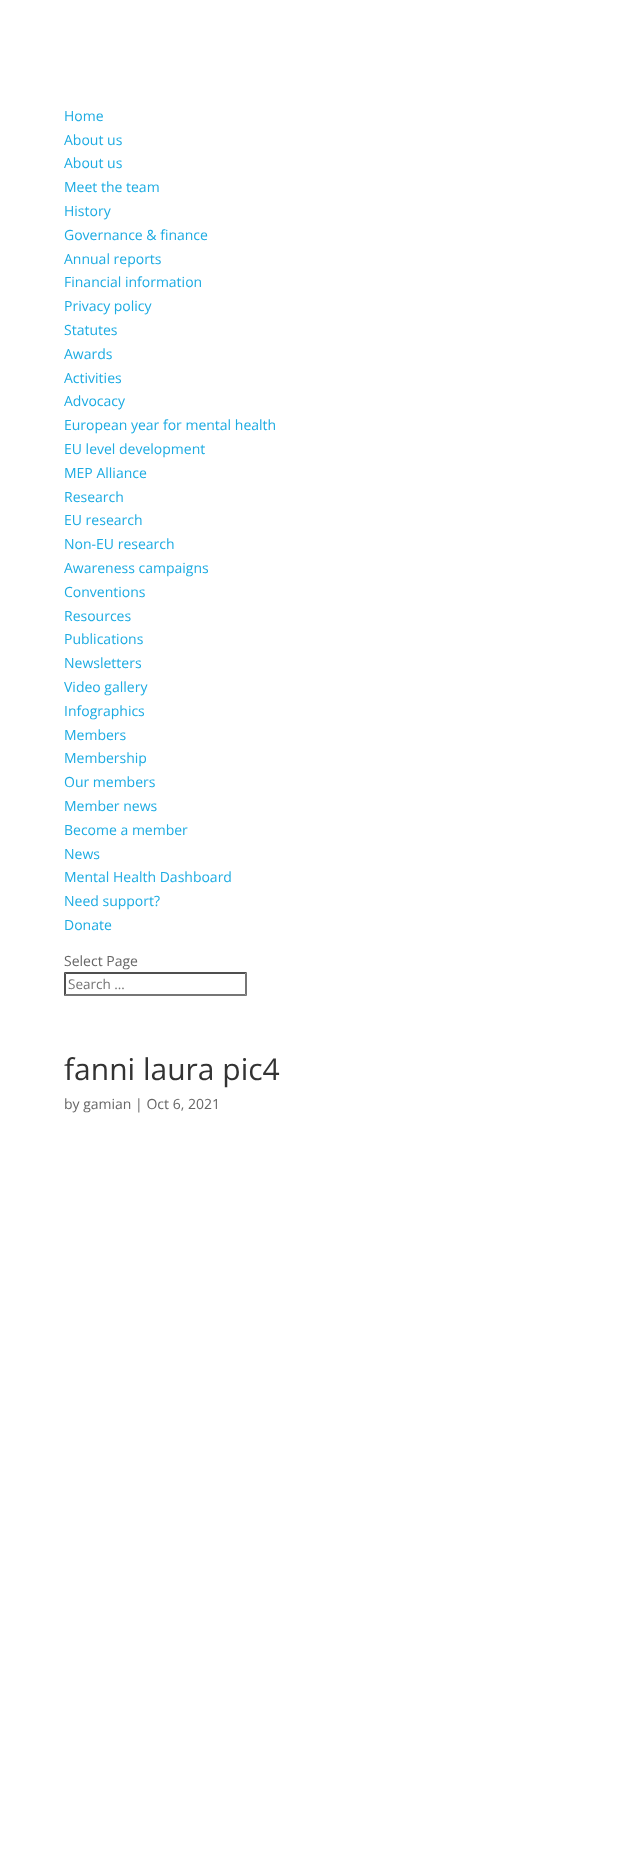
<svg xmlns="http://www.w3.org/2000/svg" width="641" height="1855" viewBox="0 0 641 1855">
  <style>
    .t1 { font: 14px Open Sans; fill: #1cabe2; }
    .t2 { font: 14px Open Sans; fill: #666; }
    .t3 { font: 13.5px Open Sans; fill: #757575; }
    .t4 { font: 30px Open Sans; fill: #333; }
  </style>
  <rect width="100%" height="100%" fill="#fff"/>
  <text x="64" y="121" class="t1">Home</text>
  <text x="64" y="145" class="t1">About us</text>
  <text x="64" y="168" class="t1">About us</text>
  <text x="64" y="192" class="t1">Meet the team</text>
  <text x="64" y="216" class="t1">History</text>
  <text x="64" y="240" class="t1">Governance &amp; finance</text>
  <text x="64" y="264" class="t1">Annual reports</text>
  <text x="64" y="287" class="t1">Financial information</text>
  <text x="64" y="311" class="t1">Privacy policy</text>
  <text x="64" y="335" class="t1">Statutes</text>
  <text x="64" y="359" class="t1">Awards</text>
  <text x="64" y="383" class="t1">Activities</text>
  <text x="64" y="406" class="t1">Advocacy</text>
  <text x="64" y="430" class="t1">European year for mental health</text>
  <text x="64" y="454" class="t1">EU level development</text>
  <text x="64" y="478" class="t1">MEP Alliance</text>
  <text x="64" y="502" class="t1">Research</text>
  <text x="64" y="525" class="t1">EU research</text>
  <text x="64" y="549" class="t1">Non-EU research</text>
  <text x="64" y="573" class="t1">Awareness campaigns</text>
  <text x="64" y="597" class="t1">Conventions</text>
  <text x="64" y="621" class="t1">Resources</text>
  <text x="64" y="644" class="t1">Publications</text>
  <text x="64" y="668" class="t1">Newsletters</text>
  <text x="64" y="692" class="t1">Video gallery</text>
  <text x="64" y="716" class="t1">Infographics</text>
  <text x="64" y="740" class="t1">Members</text>
  <text x="64" y="763" class="t1">Membership</text>
  <text x="64" y="787" class="t1">Our members</text>
  <text x="64" y="811" class="t1">Member news</text>
  <text x="64" y="835" class="t1">Become a member</text>
  <text x="64" y="859" class="t1">News</text>
  <text x="64" y="882" class="t1">Mental Health Dashboard</text>
  <text x="64" y="906" class="t1">Need support?</text>
  <text x="64" y="930" class="t1">Donate</text>
  <text x="64" y="966" class="t2">Select Page</text>
  <path d="M64 972H247L245 974H66Z" fill="#4f4f4f"/>
  <path d="M247 972V996L245 994V974Z" fill="#767676"/>
  <path d="M247 996H64L66 994H245Z" fill="#767676"/>
  <path d="M64 996V972L66 974V994Z" fill="#4f4f4f"/>
  <text x="68" y="989" class="t3">Search …</text>
  <text x="64" y="1080" class="t4">fanni laura pic4</text>
  <text x="64" y="1109" class="t2">by gamian | Oct 6, 2021</text>
</svg>
